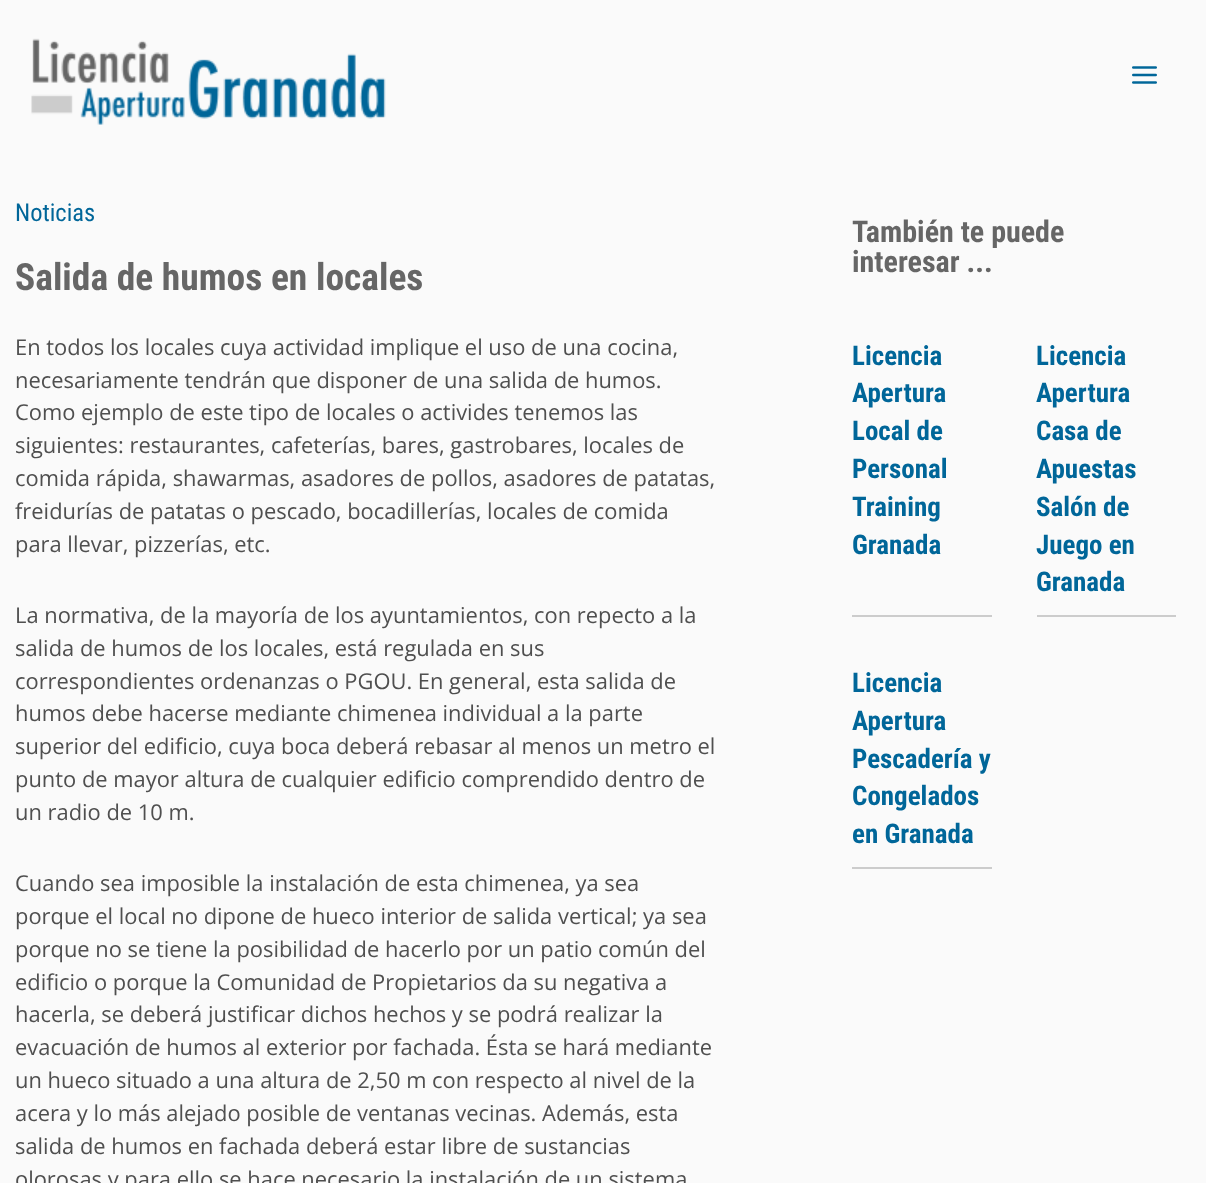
<svg xmlns="http://www.w3.org/2000/svg" width="1206" height="1183" viewBox="0 0 1206 1183">
  <style>
    .t1 { font: 24.5px Roboto Condensed; fill: #069; }
    .t2 { font: bold 37.5px Roboto Condensed; fill: #666; }
    .t3 { font: 21.9px Open Sans; fill: #4f4f4f; }
    .t4 { font: bold 30px Roboto Condensed; fill: #666; }
    .t5 { font: bold 27px Roboto Condensed; fill: #069; }
  </style>
  <rect width="100%" height="100%" fill="#fafafa"/>
  <image x="31" y="38" width="355" height="87" href="images/1.png"/>
  <image x="1132" y="66" width="25" height="18" href="images/2.png"/>
  <text x="15" y="221" class="t1">Noticias</text>
  <text x="15" y="290" class="t2">Salida de humos en locales</text>
  <text x="15" y="355" class="t3">En todos los locales cuya actividad implique el uso de una cocina,</text>
  <text x="15" y="388" class="t3">necesariamente tendrán que disponer de una salida de humos.</text>
  <text x="15" y="420" class="t3">Como ejemplo de este tipo de locales o activides tenemos las</text>
  <text x="15" y="453" class="t3">siguientes: restaurantes, cafeterías, bares, gastrobares, locales de</text>
  <text x="15" y="486" class="t3">comida rápida, shawarmas, asadores de pollos, asadores de patatas,</text>
  <text x="15" y="519" class="t3">freidurías de patatas o pescado, bocadillerías, locales de comida</text>
  <text x="15" y="552" class="t3">para llevar, pizzerías, etc.</text>
  <text x="15" y="623" class="t3">La normativa, de la mayoría de los ayuntamientos, con repecto a la</text>
  <text x="15" y="656" class="t3">salida de humos de los locales, está regulada en sus</text>
  <text x="15" y="689" class="t3">correspondientes ordenanzas o PGOU. En general, esta salida de</text>
  <text x="15" y="721" class="t3">humos debe hacerse mediante chimenea individual a la parte</text>
  <text x="15" y="754" class="t3">superior del edificio, cuya boca deberá rebasar al menos un metro el</text>
  <text x="15" y="787" class="t3">punto de mayor altura de cualquier edificio comprendido dentro de</text>
  <text x="15" y="820" class="t3">un radio de 10 m.</text>
  <text x="15" y="891" class="t3">Cuando sea imposible la instalación de esta chimenea, ya sea</text>
  <text x="15" y="924" class="t3">porque el local no dipone de hueco interior de salida vertical; ya sea</text>
  <text x="15" y="957" class="t3">porque no se tiene la posibilidad de hacerlo por un patio común del</text>
  <text x="15" y="990" class="t3">edificio o porque la Comunidad de Propietarios da su negativa a</text>
  <text x="15" y="1022" class="t3">hacerla, se deberá justificar dichos hechos y se podrá realizar la</text>
  <text x="15" y="1055" class="t3">evacuación de humos al exterior por fachada. Ésta se hará mediante</text>
  <text x="15" y="1088" class="t3">un hueco situado a una altura de 2,50 m con respecto al nivel de la</text>
  <text x="15" y="1121" class="t3">acera y lo más alejado posible de ventanas vecinas. Además, esta</text>
  <text x="15" y="1154" class="t3">salida de humos en fachada deberá estar libre de sustancias</text>
  <text x="15" y="1187" class="t3">olorosas y para ello se hace necesario la instalación de un sistema</text>
  <text x="852" y="242" class="t4">También te puede</text>
  <text x="852" y="272" class="t4">interesar ...</text>
  <rect x="852" y="615" width="140" height="2" fill="#ccc"/>
  <text x="852" y="365" class="t5">Licencia</text>
  <text x="852" y="402" class="t5">Apertura</text>
  <text x="852" y="440" class="t5">Local de</text>
  <text x="852" y="478" class="t5">Personal</text>
  <text x="852" y="516" class="t5">Training</text>
  <text x="852" y="554" class="t5">Granada</text>
  <rect x="1037" y="615" width="139" height="2" fill="#ccc"/>
  <text x="1036" y="365" class="t5">Licencia</text>
  <text x="1036" y="402" class="t5">Apertura</text>
  <text x="1036" y="440" class="t5">Casa de</text>
  <text x="1036" y="478" class="t5">Apuestas</text>
  <text x="1036" y="516" class="t5">Salón de</text>
  <text x="1036" y="554" class="t5">Juego en</text>
  <text x="1036" y="591" class="t5">Granada</text>
  <rect x="852" y="867" width="140" height="2" fill="#ccc"/>
  <text x="852" y="692" class="t5">Licencia</text>
  <text x="852" y="730" class="t5">Apertura</text>
  <text x="852" y="768" class="t5">Pescadería y</text>
  <text x="852" y="805" class="t5">Congelados</text>
  <text x="852" y="843" class="t5">en Granada</text>
</svg>
